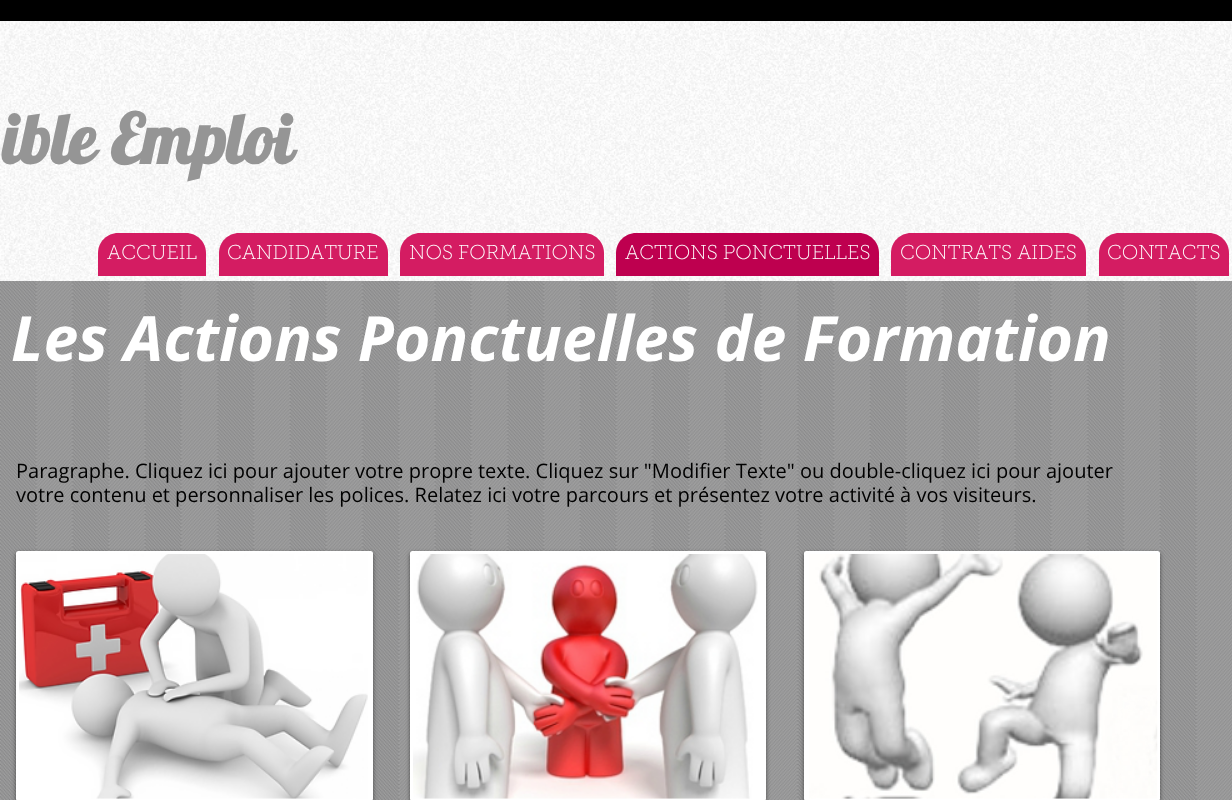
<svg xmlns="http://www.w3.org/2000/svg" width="1232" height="800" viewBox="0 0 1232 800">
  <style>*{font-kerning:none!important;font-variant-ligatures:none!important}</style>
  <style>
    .t1 { font: bold 68.75px Lobster; fill: #959595; }
    .t2 { font: 100 20px 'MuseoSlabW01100'; fill: #fff; }
    .t3 { font: italic bold 62.5px Open Sans; fill: #fff; }
    .t4 { font: 20px Open Sans; fill: #000; }
  </style>
  <rect width="100%" height="100%" fill="#a7a7a7"/>
  <rect x="0" y="21" width="1232" height="260" fill="#fff"/>
  <image x="0" y="21" width="1232" height="260" href="images/1.png"/>
  <rect x="0" y="0" width="1232" height="21" fill="#000"/>
  <text x="2" y="164" class="t1">ible Emploi</text>
  <path d="M118 233H186C197 233 206 242 206 253V276H98V253C98 242 107 233 118 233Z" fill="#d41c62"/>
  <text x="107" y="259" class="t2">ACCUEIL</text>
  <path d="M239 233H368C379 233 388 242 388 253V276H219V253C219 242 228 233 239 233Z" fill="#d41c62"/>
  <text x="227" y="259" class="t2">CANDIDATURE</text>
  <path d="M420 233H584C595 233 604 242 604 253V276H400V253C400 242 409 233 420 233Z" fill="#d41c62"/>
  <text x="409" y="259" class="t2">NOS FORMATIONS</text>
  <path d="M636 233H859C870 233 879 242 879 253V276H616V253C616 242 625 233 636 233Z" fill="#be004f"/>
  <text x="625" y="259" class="t2">ACTIONS PONCTUELLES</text>
  <path d="M911 233H1066C1077 233 1086 242 1086 253V276H891V253C891 242 900 233 911 233Z" fill="#d41c62"/>
  <text x="900" y="259" class="t2">CONTRATS AIDES</text>
  <path d="M1119 233H1209C1220 233 1229 242 1229 253V276H1099V253C1099 242 1108 233 1119 233Z" fill="#d41c62"/>
  <text x="1107" y="259" class="t2">CONTACTS</text>
  <image x="0" y="281" width="1232" height="519" href="images/5.png"/>
  <text x="11" y="361" class="t3">Les Actions Ponctuelles de Formation</text>
  <text x="16" y="478" class="t4">Paragraphe. Cliquez ici pour ajouter votre propre texte. Cliquez sur "Modifier Texte"</text>
  <text x="800" y="478" class="t4">ou double-cliquez ici pour ajouter</text>
  <text x="16" y="502" class="t4">votre contenu et personnaliser les polices. Relatez ici votre parcours et présentez votre activité à vos visiteurs.</text>
  <rect x="16" y="553" width="357" height="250" rx="2.5" fill="#00000080" filter="blur(2px)"/>
  <rect x="17.5" y="552.5" width="354" height="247" rx="1" fill="#fff" stroke="#fff" stroke-width="3"/>
  <image x="19" y="554" width="349" height="245" href="images/2.png"/>
  <rect x="410" y="553" width="356" height="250" rx="2.5" fill="#00000080" filter="blur(2px)"/>
  <rect x="411.5" y="552.5" width="353" height="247" rx="1" fill="#fff" stroke="#fff" stroke-width="3"/>
  <image x="413" y="554" width="345" height="245" href="images/3.png"/>
  <rect x="804" y="553" width="356" height="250" rx="2.5" fill="#00000080" filter="blur(2px)"/>
  <rect x="805.5" y="552.5" width="353" height="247" rx="1" fill="#fff" stroke="#fff" stroke-width="3"/>
  <image x="809" y="553" width="349" height="246" href="images/4.png"/>
</svg>
